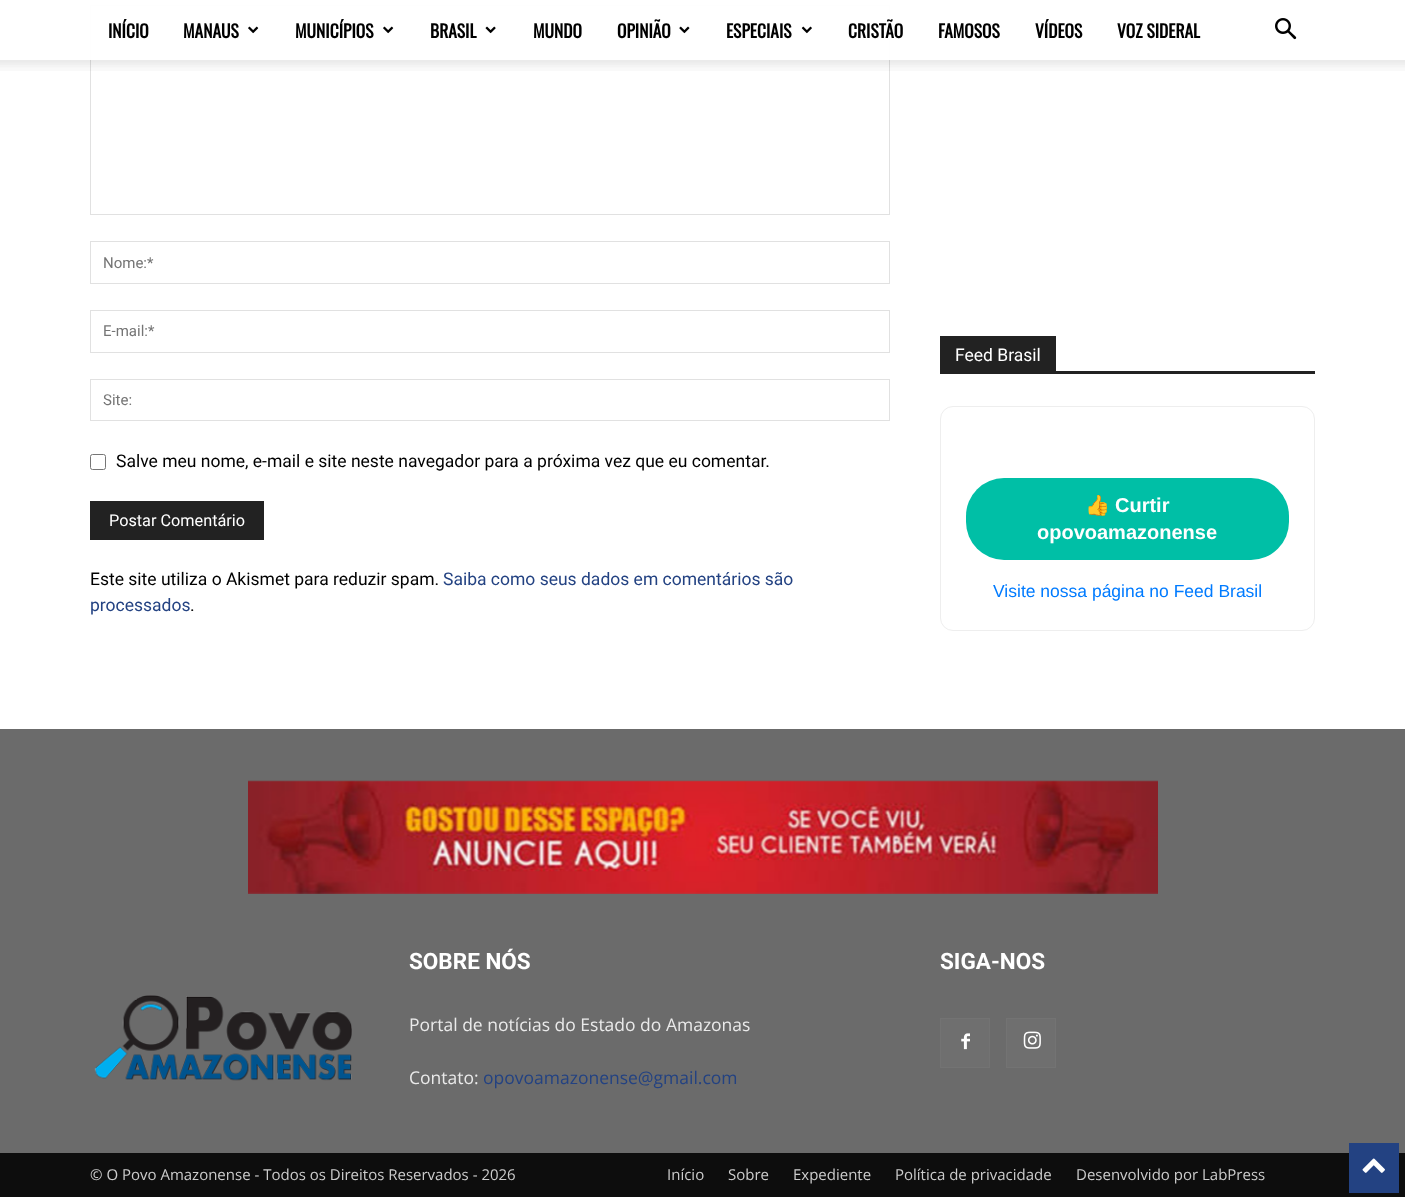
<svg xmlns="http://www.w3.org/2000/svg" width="1405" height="1197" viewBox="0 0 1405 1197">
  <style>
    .t1 { font: bold 17.5px Oswald; fill: #000; }
    .t2 { font: 15px Roboto; fill: #757575; }
    .t3 { font: 17.5px Roboto; fill: #000; }
    .t4 { font: 16.25px Roboto; fill: #fff; }
    .t5 { font: 17.5px Roboto; fill: #234282; }
    .t6 { font: 17.5px Roboto; fill: #fff; }
    .t7 { font: bold 20px Noto Color Emoji; fill: #fff; }
    .t8 { font: bold 20px Liberation Sans; fill: #fff; }
    .t9 { font: 17.5px Liberation Sans; fill: #007bff; }
    .t10 { font: bold 22.5px Roboto; fill: #fff; }
    .t11 { font: 17.5px Open Sans; fill: #eaeaea; }
    .t12 { font: 17.5px Open Sans; fill: #234282; }
    .t13 { font: 15px Open Sans; fill: #ccc; }
  </style>
  <rect width="100%" height="100%" fill="#fff"/>
  <rect x="90.5" y="5.5" width="799" height="209" fill="none" stroke="#e1e1e1"/>
  <rect x="90" y="5" width="800" height="55" fill="#fffffff2"/>
  <text x="108" y="38" class="t1">INÍCIO</text>
  <text x="183" y="38" class="t1">MANAUS</text>
  <image x="248" y="26" width="11" height="8" href="images/1.png"/>
  <text x="295" y="38" class="t1">MUNICÍPIOS</text>
  <image x="383" y="26" width="11" height="8" href="images/1.png"/>
  <text x="430" y="38" class="t1">BRASIL</text>
  <image x="485" y="26" width="11" height="8" href="images/2.png"/>
  <text x="533" y="38" class="t1">MUNDO</text>
  <text x="617" y="38" class="t1">OPINIÃO</text>
  <image x="679" y="26" width="11" height="8" href="images/3.png"/>
  <text x="726" y="38" class="t1">ESPECIAIS</text>
  <image x="801" y="26" width="11" height="8" href="images/4.png"/>
  <text x="848" y="38" class="t1">CRISTÃO</text>
  <text x="938" y="38" class="t1">FAMOSOS</text>
  <text x="1035" y="38" class="t1">VÍDEOS</text>
  <text x="1117" y="38" class="t1">VOZ SIDERAL</text>
  <image x="1275" y="18" width="22" height="22" href="images/5.png"/>
  <image x="0" y="60" width="1405" height="11" href="images/6.png"/>
  <rect x="90.5" y="241.5" width="799" height="42" fill="none" stroke="#e1e1e1"/>
  <text x="103" y="268" class="t2">Nome:*</text>
  <rect x="90.5" y="310.5" width="799" height="42" fill="none" stroke="#e1e1e1"/>
  <text x="103" y="336" class="t2">E-mail:*</text>
  <rect x="90.5" y="379.5" width="799" height="41" fill="none" stroke="#e1e1e1"/>
  <text x="103" y="405" class="t2">Site:</text>
  <rect x="90.5" y="454.5" width="15" height="15" rx="2" fill="none" stroke="#767676"/>
  <text x="116" y="467" class="t3">Salve meu nome, e-mail e site neste navegador para a próxima vez que eu comentar.</text>
  <rect x="90" y="501" width="174" height="39" fill="#222"/>
  <text x="109" y="526" class="t4">Postar Comentário</text>
  <text x="90" y="585" class="t3">Este site utiliza o Akismet para reduzir spam.</text>
  <text x="443" y="585" class="t5">Saiba como seus dados em comentários são</text>
  <text x="90" y="611" class="t5">processados</text>
  <text x="190" y="611" class="t3">.</text>
  <rect x="940" y="371" width="375" height="3" fill="#222"/>
  <rect x="940" y="336" width="116" height="35" fill="#222"/>
  <text x="955" y="361" class="t6">Feed Brasil</text>
  <rect x="940.5" y="406.5" width="374" height="224" rx="12.5" fill="none" stroke="#eee"/>
  <rect x="966" y="478" width="323" height="82" rx="38" fill="#00bfa6"/>
  <text x="1085" y="512" class="t7">👍</text>
  <text x="1115" y="512" class="t8">Curtir</text>
  <text x="1037" y="539" class="t8">opovoamazonense</text>
  <text x="993" y="597" class="t9">Visite nossa página no Feed Brasil</text>
  <rect x="0" y="729" width="1405" height="424" fill="#6b6b6b"/>
  <image x="248" y="780" width="910" height="114" href="images/7.png"/>
  <text x="409" y="969" class="t10">SOBRE NÓS</text>
  <text x="409" y="1031" class="t11">Portal de notícias do Estado do Amazonas</text>
  <text x="409" y="1084" class="t11">Contato:</text>
  <text x="483" y="1084" class="t12">opovoamazonense@gmail.com</text>
  <text x="940" y="969" class="t10">SIGA-NOS</text>
  <rect x="941" y="1019" width="48" height="48" fill="#6f6f6f"/>
  <image x="961" y="1033" width="9" height="17" href="images/8.png"/>
  <rect x="940.5" y="1018.5" width="49" height="49" fill="none" stroke="#737373"/>
  <rect x="1007" y="1019" width="48" height="48" fill="#6f6f6f"/>
  <image x="1023" y="1031" width="18" height="18" href="images/9.png"/>
  <rect x="1006.5" y="1018.5" width="49" height="49" fill="none" stroke="#737373"/>
  <image x="94" y="995" width="258" height="86" href="images/10.png"/>
  <rect x="0" y="1153" width="1405" height="44" fill="#0d0d0d"/>
  <text x="90" y="1180" class="t13">© O Povo Amazonense - Todos os Direitos Reservados - 2026</text>
  <text x="667" y="1180" class="t13">Início</text>
  <text x="728" y="1180" class="t13">Sobre</text>
  <text x="793" y="1180" class="t13">Expediente</text>
  <text x="895" y="1180" class="t13">Política de privacidade</text>
  <text x="1076" y="1180" class="t13">Desenvolvido por LabPress</text>
  <rect x="1349" y="1143" width="50" height="50" fill="#234282"/>
  <image x="1362" y="1158" width="23" height="15" href="images/11.png"/>
</svg>
